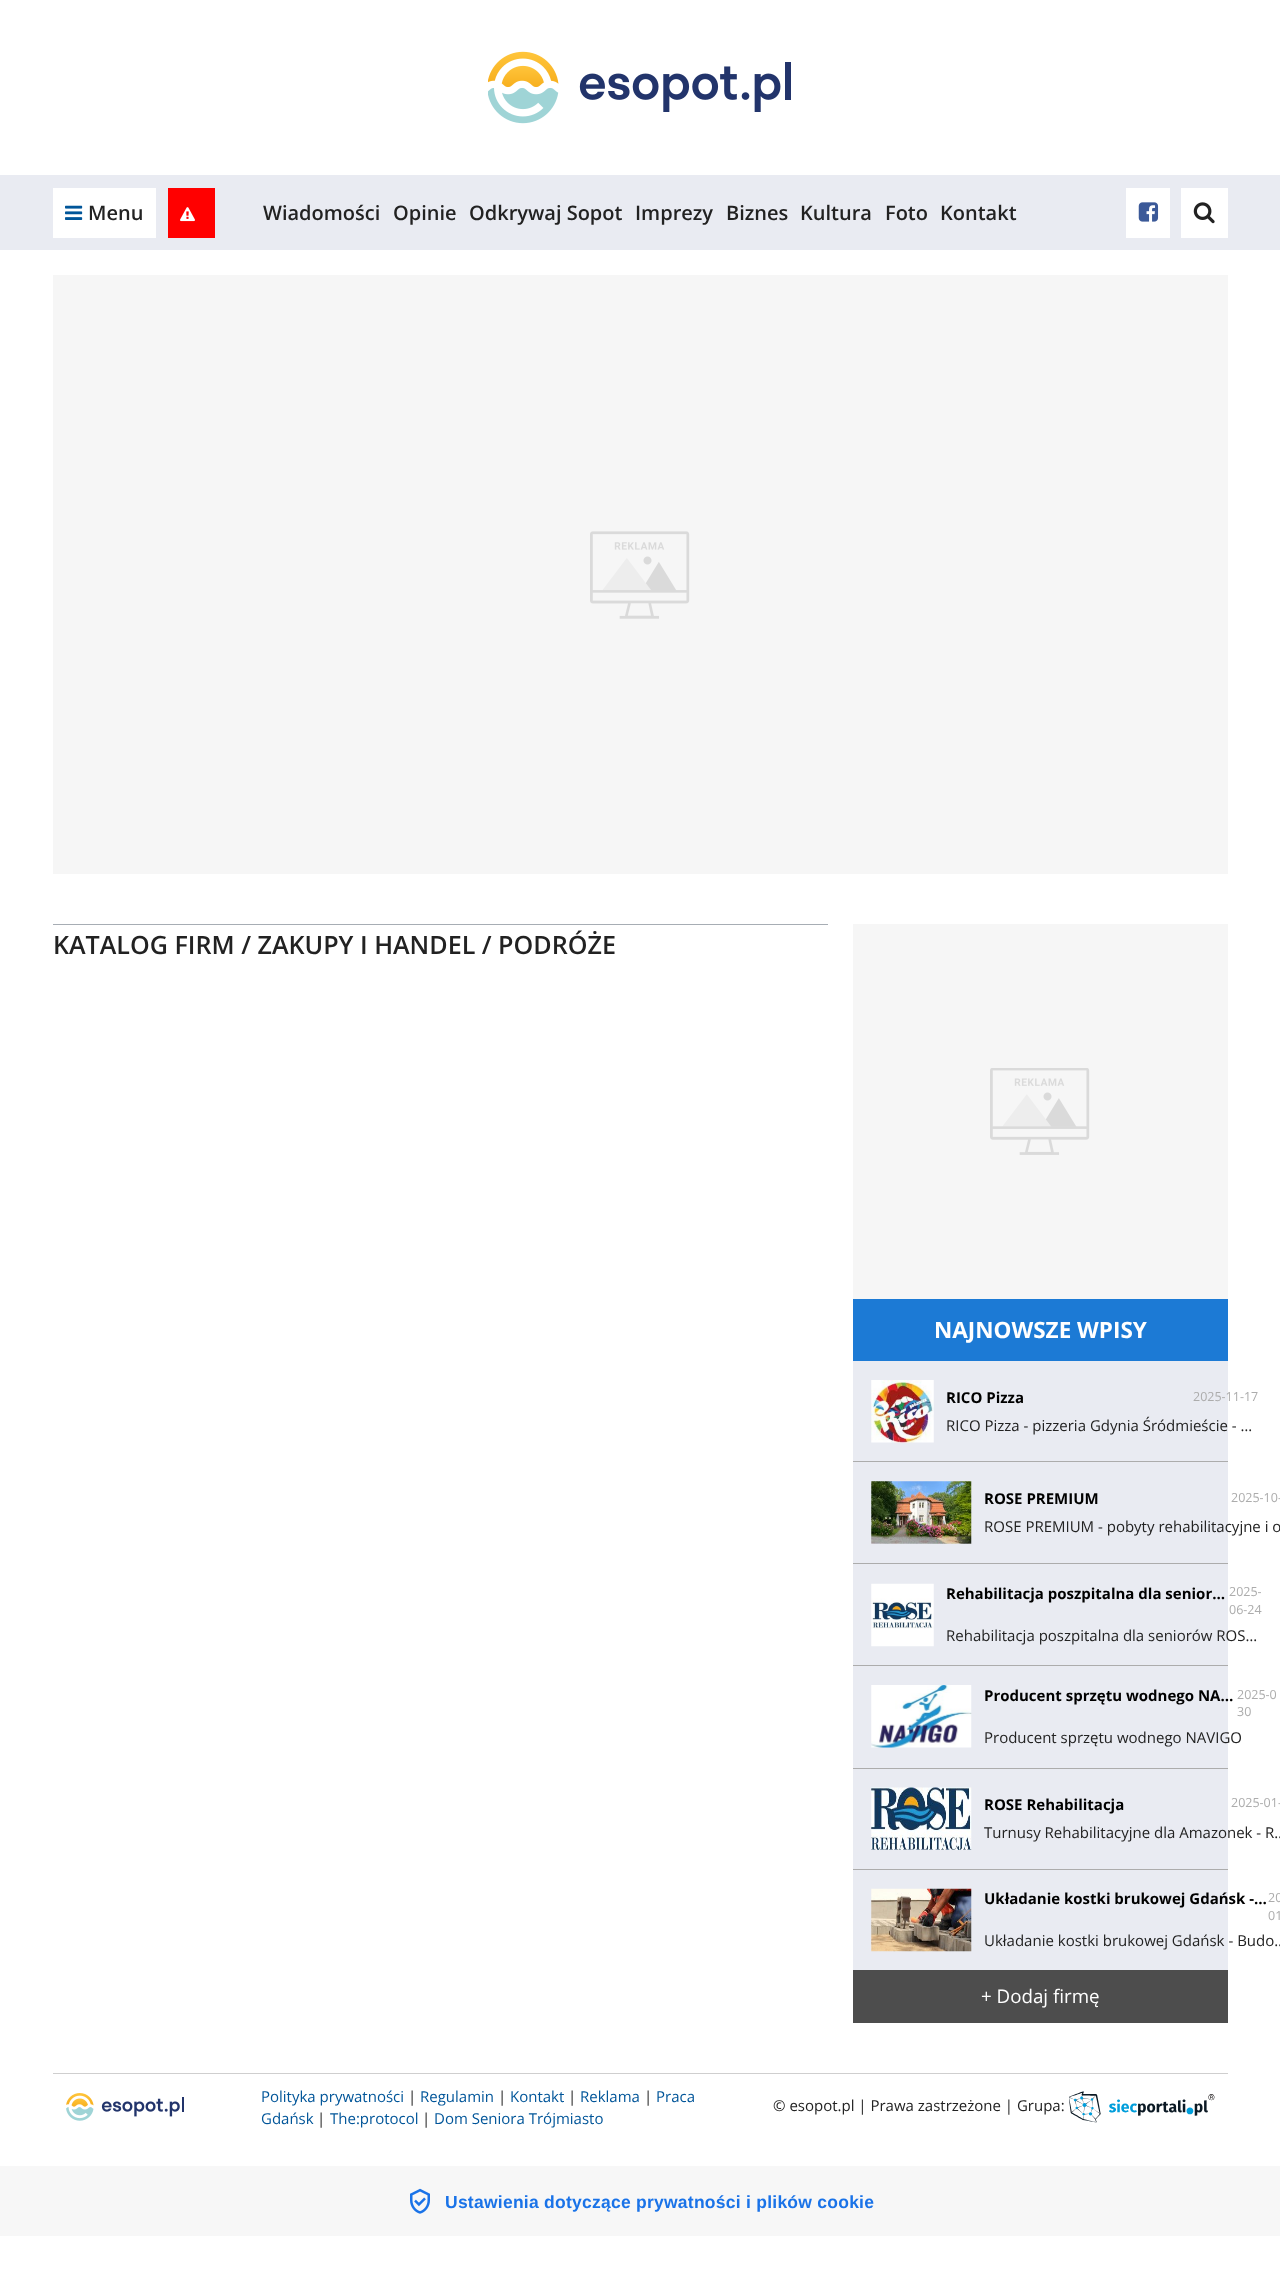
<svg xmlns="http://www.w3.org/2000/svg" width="1280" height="2294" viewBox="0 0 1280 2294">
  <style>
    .t1 { font: 600 20px Open Sans; fill: #222; }
    .t2 { font: 600 25.1px Open Sans; fill: #222; }
    .t3 { font: bold 22.5px Open Sans; fill: #fff; }
    .t4 { font: bold 15px Open Sans; fill: #000; }
    .t5 { font: 12.5px Open Sans; fill: #acacac; }
    .t6 { font: 15px Open Sans; fill: #222; }
    .t7 { font: 18.75px Open Sans; fill: #fff; }
    .t8 { font: 15px Open Sans; fill: #059; }
    .t9 { font: bold 17.5px Liberation Sans; letter-spacing: 0.25px; fill: #1a73e8; }
  </style>
  <rect width="100%" height="100%" fill="#fff"/>
  <image x="488" y="51" width="303" height="73" href="images/1.png"/>
  <rect x="0" y="175" width="1280" height="75" fill="#e9ebf2"/>
  <rect x="53" y="188" width="103" height="50" fill="#fff"/>
  <image x="65" y="205" width="18" height="15" href="images/2.png"/>
  <text x="88" y="220" class="t1">Menu</text>
  <rect x="168" y="188" width="47" height="50" fill="#f00"/>
  <image x="180" y="207" width="15" height="15" href="images/3.png"/>
  <text x="263" y="220" class="t1">Wiadomości</text>
  <text x="393" y="220" class="t1">Opinie</text>
  <text x="469" y="220" class="t1">Odkrywaj Sopot</text>
  <text x="635" y="220" class="t1">Imprezy</text>
  <text x="726" y="220" class="t1">Biznes</text>
  <text x="800" y="220" class="t1">Kultura</text>
  <text x="885" y="220" class="t1">Foto</text>
  <text x="940" y="220" class="t1">Kontakt</text>
  <rect x="1126" y="188" width="44" height="50" fill="#fff"/>
  <image x="1138" y="202" width="21" height="20" href="images/4.png"/>
  <rect x="1181" y="188" width="47" height="50" fill="#fff"/>
  <image x="1193" y="202" width="22" height="22" href="images/5.png"/>
  <rect x="53" y="275" width="1175" height="599" fill="#f6f6f6"/>
  <image x="590" y="531" width="100" height="88" href="images/6.png"/>
  <rect x="53" y="924" width="775" height="1" fill="#a7adb4"/>
  <text x="53" y="954" class="t2">KATALOG FIRM / ZAKUPY I HANDEL / PODRÓŻE</text>
  <rect x="853" y="924" width="375" height="375" fill="#f6f6f6"/>
  <image x="990" y="1068" width="100" height="87" href="images/7.png"/>
  <rect x="853" y="1299" width="375" height="62" fill="#1c7ad5"/>
  <text x="934" y="1338" class="t3">NAJNOWSZE WPISY</text>
  <rect x="853" y="1361" width="375" height="609" fill="#e9ebf2"/>
  <rect x="853" y="1461" width="375" height="1" fill="#acacac"/>
  <image x="871" y="1380" width="63" height="63" href="images/8.png"/>
  <text x="946" y="1403" class="t4">RICO Pizza</text>
  <text x="1193" y="1401" class="t5">2025-11-17</text>
  <text x="946" y="1431" class="t6">RICO Pizza - pizzeria Gdynia Śródmieście - …</text>
  <rect x="853" y="1563" width="375" height="1" fill="#acacac"/>
  <image x="871" y="1481" width="101" height="63" href="images/9.png"/>
  <text x="984" y="1504" class="t4">ROSE PREMIUM</text>
  <text x="1231" y="1502" class="t5">2025-10-</text>
  <text x="984" y="1532" class="t6">ROSE PREMIUM - pobyty rehabilitacyjne i o</text>
  <rect x="853" y="1665" width="375" height="1" fill="#acacac"/>
  <image x="871" y="1583" width="63" height="64" href="images/10.png"/>
  <text x="946" y="1599" class="t4">Rehabilitacja poszpitalna dla senior…</text>
  <text x="1229" y="1596" class="t5">2025-</text>
  <text x="1229" y="1614" class="t5">06-24</text>
  <text x="946" y="1641" class="t6">Rehabilitacja poszpitalna dla seniorów ROS…</text>
  <rect x="853" y="1768" width="375" height="1" fill="#acacac"/>
  <image x="871" y="1685" width="101" height="63" href="images/11.png"/>
  <text x="984" y="1701" class="t4">Producent sprzętu wodnego NA…</text>
  <text x="1237" y="1699" class="t5">2025-0</text>
  <text x="1237" y="1716" class="t5">30</text>
  <text x="984" y="1743" class="t6">Producent sprzętu wodnego NAVIGO</text>
  <rect x="853" y="1869" width="375" height="1" fill="#acacac"/>
  <image x="871" y="1787" width="101" height="63" href="images/12.png"/>
  <text x="984" y="1810" class="t4">ROSE Rehabilitacja</text>
  <text x="1231" y="1807" class="t5">2025-01-</text>
  <text x="984" y="1838" class="t6">Turnusy Rehabilitacyjne dla Amazonek - R…</text>
  <image x="871" y="1888" width="101" height="64" href="images/13.png"/>
  <text x="984" y="1904" class="t4">Układanie kostki brukowej Gdańsk -…</text>
  <text x="1268" y="1902" class="t5">20</text>
  <text x="1268" y="1920" class="t5">01</text>
  <text x="984" y="1946" class="t6">Układanie kostki brukowej Gdańsk - Budo…</text>
  <rect x="853" y="1970" width="375" height="53" fill="#4d4d4d"/>
  <text x="981" y="2003" class="t7">+ Dodaj firmę</text>
  <rect x="53" y="2073" width="1175" height="1" fill="#cfcfcf"/>
  <image x="66" y="2093" width="118" height="28" href="images/14.png"/>
  <text x="261" y="2102" class="t8">Polityka prywatności</text>
  <text x="408" y="2102" class="t6">|</text>
  <text x="420" y="2102" class="t8">Regulamin</text>
  <text x="498" y="2102" class="t6">|</text>
  <text x="510" y="2102" class="t8">Kontakt</text>
  <text x="568" y="2102" class="t6">|</text>
  <text x="580" y="2102" class="t8">Reklama</text>
  <text x="644" y="2102" class="t6">|</text>
  <text x="656" y="2102" class="t8">Praca</text>
  <text x="261" y="2124" class="t8">Gdańsk</text>
  <text x="317" y="2124" class="t6">|</text>
  <text x="330" y="2124" class="t8">The:protocol</text>
  <text x="422" y="2124" class="t6">|</text>
  <text x="434" y="2124" class="t8">Dom Seniora Trójmiasto</text>
  <text x="773" y="2111" class="t6">© esopot.pl | Prawa zastrzeżone | Grupa:</text>
  <image x="1069" y="2091" width="146" height="32" href="images/15.png"/>
  <rect x="0" y="2166" width="1280" height="70" fill="#f7f7f7"/>
  <image x="410" y="2188" width="20" height="26" href="images/16.png"/>
  <text x="445" y="2208" class="t9">Ustawienia dotyczące prywatności i plików cookie</text>
</svg>
